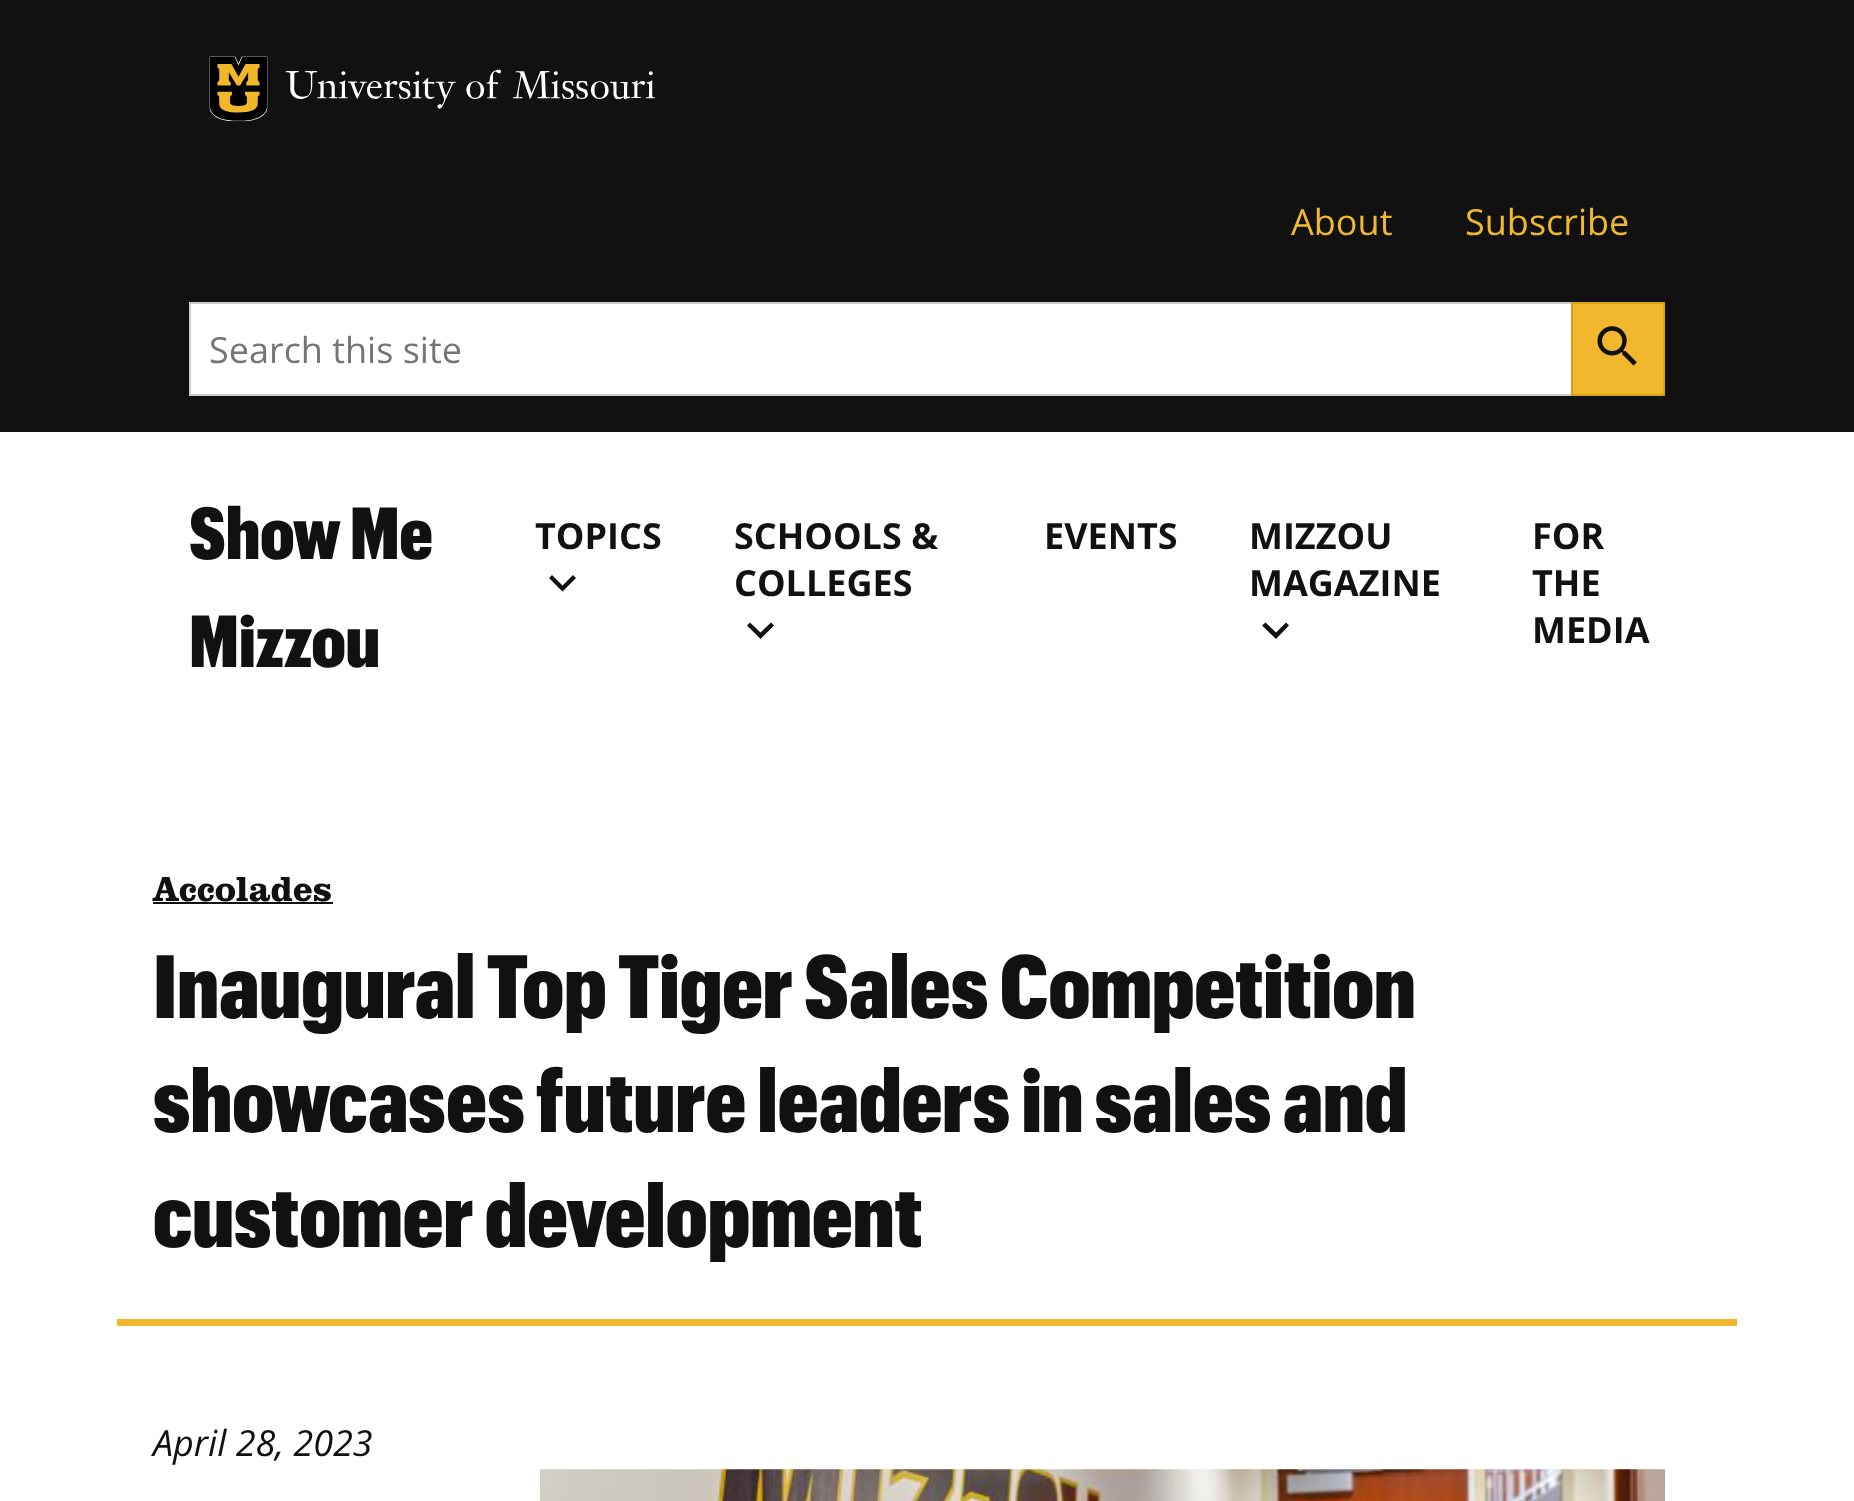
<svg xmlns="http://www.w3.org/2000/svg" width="1854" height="1501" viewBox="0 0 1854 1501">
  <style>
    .t1 { font: 36px Open Sans; fill: #f1b82d; }
    .t2 { font: 36px Open Sans; fill: #757575; }
    .t3 { font: 800 72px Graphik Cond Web; fill: #111; }
    .t4 { font: bold 36px Open Sans; fill: #111; }
    .t5 { font: 36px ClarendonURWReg; fill: #111; }
    .t6 { font: 800 87.9px Graphik Cond Web; fill: #111; }
    .t7 { font: italic 36px Open Sans; fill: #111; }
  </style>
  <rect width="100%" height="100%" fill="#fff"/>
  <rect x="0" y="0" width="1854" height="432" fill="#111"/>
  <image x="209" y="56" width="59" height="66" href="images/1.png"/>
  <image x="285" y="69" width="371" height="40" href="images/2.png"/>
  <text x="1291" y="235" class="t1">About</text>
  <text x="1465" y="235" class="t1">Subscribe</text>
  <rect x="190" y="303" width="1382" height="92" fill="#fff" stroke="#ccc" stroke-width="2"/>
  <text x="209" y="363" class="t2">Search this site</text>
  <rect x="1572" y="303" width="92" height="92" fill="#f1b82d" stroke="#dca10f" stroke-width="2"/>
  <image x="1597" y="326" width="40" height="40" href="images/3.png"/>
  <text x="189" y="559" class="t3">Show Me</text>
  <text x="189" y="667" class="t3">Mizzou</text>
  <text x="535" y="549" class="t4">TOPICS</text>
  <path d="M573 575L576 578L562.5 591.5L549 578L552 575L562.5 585.5Z" fill="#111"/>
  <text x="734" y="549" class="t4">SCHOOLS &amp;</text>
  <text x="734" y="596" class="t4">COLLEGES</text>
  <path d="M771 622.5L774 625.5L760.5 639L747 625.5L750 622.5L760.5 632.5Z" fill="#111"/>
  <text x="1044" y="549" class="t4">EVENTS</text>
  <text x="1249" y="549" class="t4">MIZZOU</text>
  <text x="1249" y="596" class="t4">MAGAZINE</text>
  <path d="M1286 622.5L1289 625.5L1276 639L1262 625.5L1265.5 622.5L1276 632.5Z" fill="#111"/>
  <text x="1532" y="549" class="t4">FOR</text>
  <text x="1532" y="596" class="t4">THE</text>
  <text x="1532" y="643" class="t4">MEDIA</text>
  <rect x="117" y="1319" width="1620" height="7" fill="#f1b82d"/>
  <text x="153" y="901" class="t5">Accolades</text>
  <rect x="153" y="902" width="180" height="2" fill="#111"/>
  <text x="153" y="1018" class="t6">Inaugural Top Tiger Sales Competition</text>
  <text x="153" y="1132" class="t6">showcases future leaders in sales and</text>
  <text x="153" y="1247" class="t6">customer development</text>
  <text x="153" y="1456" class="t7">April 28, 2023</text>
  <image x="540" y="1469" width="1125" height="32" href="images/4.png"/>
</svg>
